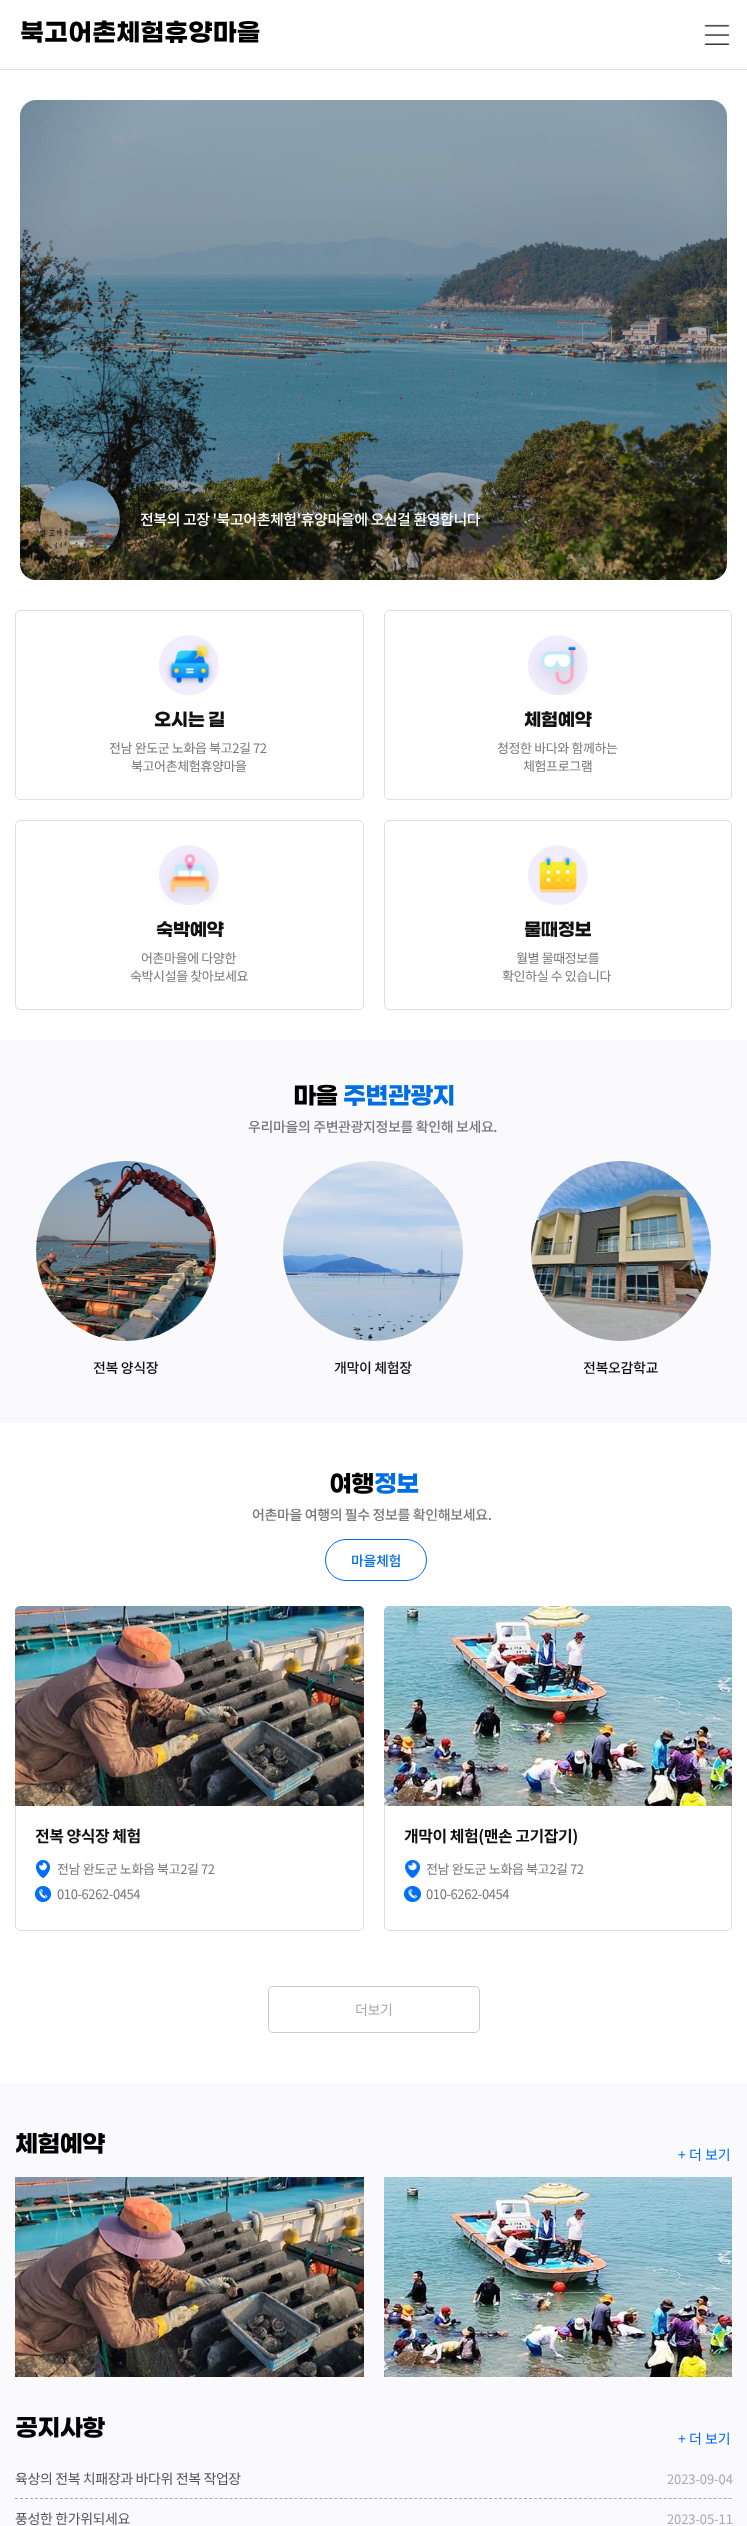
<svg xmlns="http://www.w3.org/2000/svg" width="747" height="2526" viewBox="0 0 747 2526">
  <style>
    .t1 { font: bold 25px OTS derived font; fill: #000; }
    .t2 { font: 500 15px Noto Sans KR; letter-spacing: -0.45px; fill: #fff; }
    .t3 { font: bold 18px OTS derived font; letter-spacing: -0.5px; fill: #111; }
    .t4 { font: 13px Noto Sans KR; letter-spacing: -0.4px; fill: #777; }
    .t5 { font: bold 24px OTS derived font; letter-spacing: -0.75px; fill: #000; }
    .t6 { font: bold 24px OTS derived font; letter-spacing: -0.75px; fill: #006ee3; }
    .t7 { font: 500 14px Noto Sans KR; letter-spacing: -0.4px; fill: #777; }
    .t8 { font: 500 14px Noto Sans KR; letter-spacing: -0.4px; fill: #111; }
    .t9 { font: 500 14px Noto Sans KR; letter-spacing: -0.4px; fill: #006ee3; }
    .t10 { font: bold 16px Noto Sans KR; letter-spacing: -0.5px; fill: #111; }
    .t11 { font: 14px Noto Sans KR; letter-spacing: -0.4px; fill: #aaa; }
    .t12 { font: 14px Noto Sans KR; fill: #006ef7; }
    .t13 { font: 14px Noto Sans KR; letter-spacing: -0.4px; fill: #555; }
    .t14 { font: 13px Noto Sans KR; letter-spacing: -0.1px; fill: #aaa; }
  </style>
  <rect width="100%" height="100%" fill="#fff"/>
  <text x="20" y="40" class="t1">북고어촌체험휴양마을</text>
  <image x="704" y="24" width="26" height="21" href="images/1.png"/>
  <rect x="0" y="69" width="747" height="1" fill="#e1e1e1"/>
  <image x="20" y="100" width="707" height="480" href="images/2.png"/>
  <image x="40" y="480" width="80" height="80" href="images/3.png"/>
  <text x="140" y="525" class="t2">전복의 고장 '북고어촌체험'휴양마을에 오신걸 환영합니다</text>
  <rect x="15.5" y="610.5" width="348" height="189" rx="4.5" fill="none" stroke="#dfdfdf"/>
  <image x="159" y="635" width="60" height="60" href="images/4.png"/>
  <text x="154" y="725" class="t3">오시는</text>
  <text x="208" y="725" class="t3">길</text>
  <text x="109" y="753" class="t4">전남 완도군 노화읍 북고2길 72</text>
  <text x="131" y="771" class="t4">북고어촌체험휴양마을</text>
  <rect x="384.5" y="610.5" width="347" height="189" rx="4.5" fill="none" stroke="#dfdfdf"/>
  <image x="528" y="635" width="60" height="60" href="images/5.png"/>
  <text x="524" y="725" class="t3">체험예약</text>
  <text x="497" y="753" class="t4">청정한 바다와 함께하는</text>
  <text x="523" y="771" class="t4">체험프로그램</text>
  <rect x="15.5" y="820.5" width="348" height="189" rx="4.5" fill="none" stroke="#dfdfdf"/>
  <image x="159" y="845" width="60" height="60" href="images/6.png"/>
  <text x="156" y="935" class="t3">숙박예약</text>
  <text x="141" y="963" class="t4">어촌마을에 다양한</text>
  <text x="130" y="981" class="t4">숙박시설을 찾아보세요</text>
  <rect x="384.5" y="820.5" width="347" height="189" rx="4.5" fill="none" stroke="#dfdfdf"/>
  <image x="528" y="845" width="60" height="60" href="images/7.png"/>
  <text x="524" y="935" class="t3">물때정보</text>
  <text x="516" y="963" class="t4">월별 물때정보를</text>
  <text x="502" y="981" class="t4">확인하실 수 있습니다</text>
  <rect x="0" y="1040" width="747" height="383" fill="#fafafd"/>
  <text x="293" y="1103" class="t5">마을</text>
  <text x="343" y="1103" class="t6">주변관광지</text>
  <text x="248" y="1132" class="t7">우리마을의 주변관광지정보를 확인해 보세요.</text>
  <image x="36" y="1161" width="180" height="180" href="images/8.png"/>
  <text x="93" y="1373" class="t8">전복 양식장</text>
  <image x="283" y="1161" width="180" height="180" href="images/9.png"/>
  <text x="334" y="1373" class="t8">개막이 체험장</text>
  <image x="531" y="1161" width="180" height="180" href="images/10.png"/>
  <text x="583" y="1373" class="t8">전복오감학교</text>
  <text x="329" y="1491" class="t5">여행</text>
  <text x="374" y="1491" class="t6">정보</text>
  <text x="252" y="1520" class="t7">어촌마을 여행의 필수 정보를 확인해보세요.</text>
  <rect x="325.5" y="1539.5" width="101" height="41" rx="20.5" fill="none" stroke="#006ee3"/>
  <text x="351" y="1566" class="t9">마을체험</text>
  <rect x="15.5" y="1606.5" width="348" height="324" rx="4.5" fill="none" stroke="#dfdfdf"/>
  <image x="15" y="1606" width="349" height="200" href="images/11.png"/>
  <text x="35" y="1842" class="t10">전복 양식장 체험</text>
  <image x="36" y="1860" width="14" height="18" href="images/12.png"/>
  <text x="57" y="1874" class="t4">전남 완도군 노화읍 북고2길 72</text>
  <image x="35" y="1886" width="16" height="16" href="images/13.png"/>
  <text x="57" y="1899" class="t4">010-6262-0454</text>
  <rect x="384.5" y="1606.5" width="347" height="324" rx="4.5" fill="none" stroke="#dfdfdf"/>
  <image x="384" y="1606" width="348" height="200" href="images/14.png"/>
  <text x="404" y="1842" class="t10">개막이 체험(맨손 고기잡기)</text>
  <image x="405" y="1860" width="15" height="18" href="images/15.png"/>
  <text x="426" y="1874" class="t4">전남 완도군 노화읍 북고2길 72</text>
  <image x="404" y="1886" width="17" height="16" href="images/16.png"/>
  <text x="426" y="1899" class="t4">010-6262-0454</text>
  <rect x="268.5" y="1986.5" width="211" height="46" rx="4.5" fill="none" stroke="#ccc"/>
  <text x="355" y="2015" class="t11">더보기</text>
  <rect x="0" y="2083" width="747" height="443" fill="#fafafd"/>
  <text x="15" y="2151" class="t5">체험예약</text>
  <text x="678" y="2160" class="t12">+ 더 보기</text>
  <image x="15" y="2177" width="349" height="200" href="images/17.png"/>
  <image x="384" y="2177" width="348" height="200" href="images/18.png"/>
  <text x="15" y="2435" class="t5">공지사항</text>
  <text x="678" y="2444" class="t12">+ 더 보기</text>
  <text x="15" y="2484" class="t13">육상의 전복 치패장과 바다위 전복 작업장</text>
  <text x="667" y="2484" class="t14">2023-09-04</text>
  <path d="M15 2498.5H732" fill="none" stroke="#aaa" stroke-dasharray="3 1.99"/>
  <text x="15" y="2524" class="t13">풍성한 한가위되세요</text>
  <text x="667" y="2524" class="t14">2023-05-11</text>
</svg>
